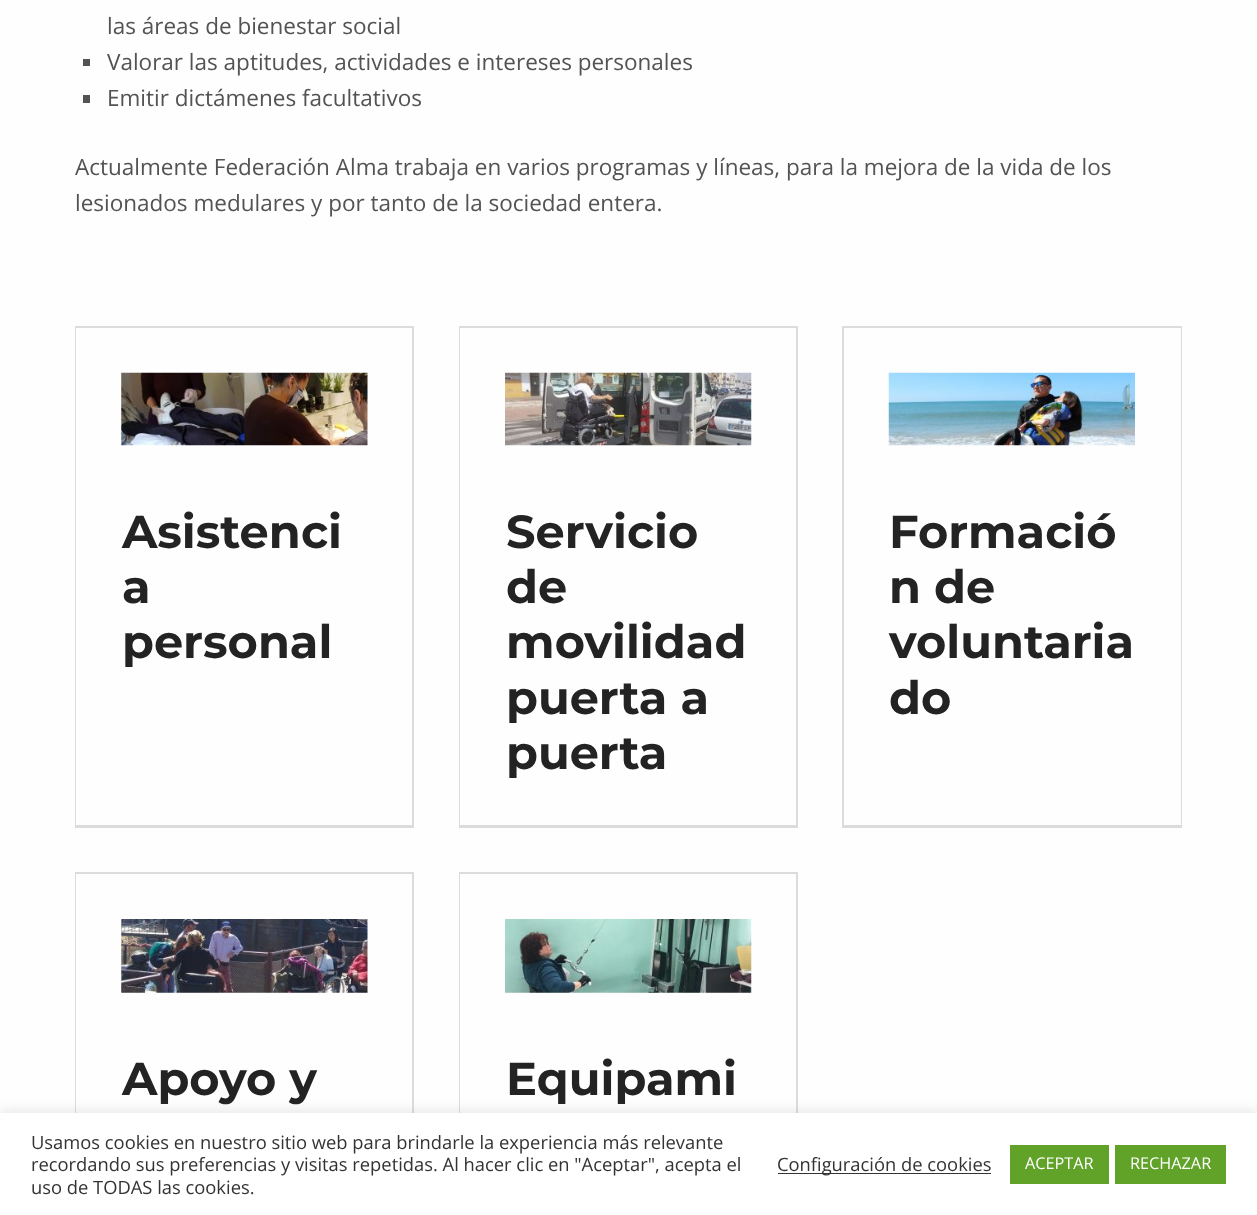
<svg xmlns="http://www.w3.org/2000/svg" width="1257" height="1215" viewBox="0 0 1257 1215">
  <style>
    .t1 { font: 22.5px Open Sans; fill: #535354; }
    .t2 { font: bold 46.25px Montserrat; fill: #232324; }
    .t3 { font: 18.35px Open Sans; fill: #333; }
    .t4 { font: 16.25px Open Sans; fill: #fff; }
  </style>
  <rect width="100%" height="100%" fill="#fefeff"/>
  <text x="107" y="34" class="t1">las áreas de bienestar social</text>
  <rect x="83" y="59" width="7" height="7" fill="#535354"/>
  <text x="107" y="70" class="t1">Valorar las aptitudes, actividades e intereses personales</text>
  <rect x="83" y="95" width="7" height="8" fill="#535354"/>
  <text x="107" y="106" class="t1">Emitir dictámenes facultativos</text>
  <text x="75" y="175" class="t1">Actualmente Federación Alma trabaja en varios programas y líneas, para la mejora de la vida de los</text>
  <text x="75" y="211" class="t1">lesionados medulares y por tanto de la sociedad entera.</text>
  <path d="M75 326H414L412 328H76Z" fill="#dcdcdd"/>
  <path d="M414 326V828L412 825V328Z" fill="#53535433"/>
  <path d="M414 828H75L76 825H412Z" fill="#53535433"/>
  <path d="M75 828V326L76 328V825Z" fill="#53535433"/>
  <image x="121" y="372" width="247" height="74" href="images/1.png"/>
  <text x="122" y="548" class="t2">Asistenci</text>
  <text x="122" y="603" class="t2">a</text>
  <text x="122" y="658" class="t2">personal</text>
  <path d="M459 326H798L796 328H460Z" fill="#dcdcdd"/>
  <path d="M798 326V828L796 825V328Z" fill="#53535433"/>
  <path d="M798 828H459L460 825H796Z" fill="#53535433"/>
  <path d="M459 828V326L460 328V825Z" fill="#53535433"/>
  <image x="505" y="372" width="247" height="74" href="images/2.png"/>
  <text x="506" y="548" class="t2">Servicio</text>
  <text x="506" y="603" class="t2">de</text>
  <text x="506" y="658" class="t2">movilidad</text>
  <text x="506" y="714" class="t2">puerta a</text>
  <text x="506" y="769" class="t2">puerta</text>
  <path d="M842 326H1182L1181 328H844Z" fill="#dcdcdd"/>
  <path d="M1182 326V828L1181 825V328Z" fill="#53535433"/>
  <path d="M1182 828H842L844 825H1181Z" fill="#53535433"/>
  <path d="M842 828V326L844 328V825Z" fill="#53535433"/>
  <image x="888" y="372" width="247" height="74" href="images/3.png"/>
  <text x="889" y="548" class="t2">Formació</text>
  <text x="889" y="603" class="t2">n de</text>
  <text x="889" y="658" class="t2">voluntaria</text>
  <text x="889" y="714" class="t2">do</text>
  <path d="M75 872H414L412 874H76Z" fill="#dcdcdd"/>
  <path d="M414 872V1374L412 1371V874Z" fill="#53535433"/>
  <path d="M75 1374V872L76 874V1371Z" fill="#53535433"/>
  <image x="121" y="919" width="247" height="74" href="images/4.png"/>
  <text x="122" y="1095" class="t2">Apoyo y</text>
  <path d="M459 872H798L796 874H460Z" fill="#dcdcdd"/>
  <path d="M798 872V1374L796 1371V874Z" fill="#53535433"/>
  <path d="M459 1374V872L460 874V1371Z" fill="#53535433"/>
  <image x="505" y="919" width="247" height="74" href="images/5.png"/>
  <text x="506" y="1095" class="t2">Equipami</text>
  <rect x="0" y="1111" width="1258" height="103" fill="#acabab4d" filter="blur(6px)"/>
  <rect x="0" y="1113" width="1257" height="102" fill="#fff"/>
  <text x="31" y="1149" class="t3">Usamos cookies en nuestro sitio web para brindarle la experiencia más relevante</text>
  <text x="31" y="1171" class="t3">recordando sus preferencias y visitas repetidas. Al hacer clic en "Aceptar", acepta el</text>
  <text x="31" y="1194" class="t3">uso de TODAS las cookies.</text>
  <rect x="778" y="1173" width="213" height="1" fill="#333"/>
  <text x="777" y="1171" class="t3">Configuración de cookies</text>
  <rect x="1010" y="1145" width="99" height="39" fill="#61a229"/>
  <text x="1025" y="1169" class="t4">ACEPTAR</text>
  <rect x="1115" y="1145" width="111" height="39" fill="#61a229"/>
  <text x="1130" y="1169" class="t4">RECHAZAR</text>
</svg>
